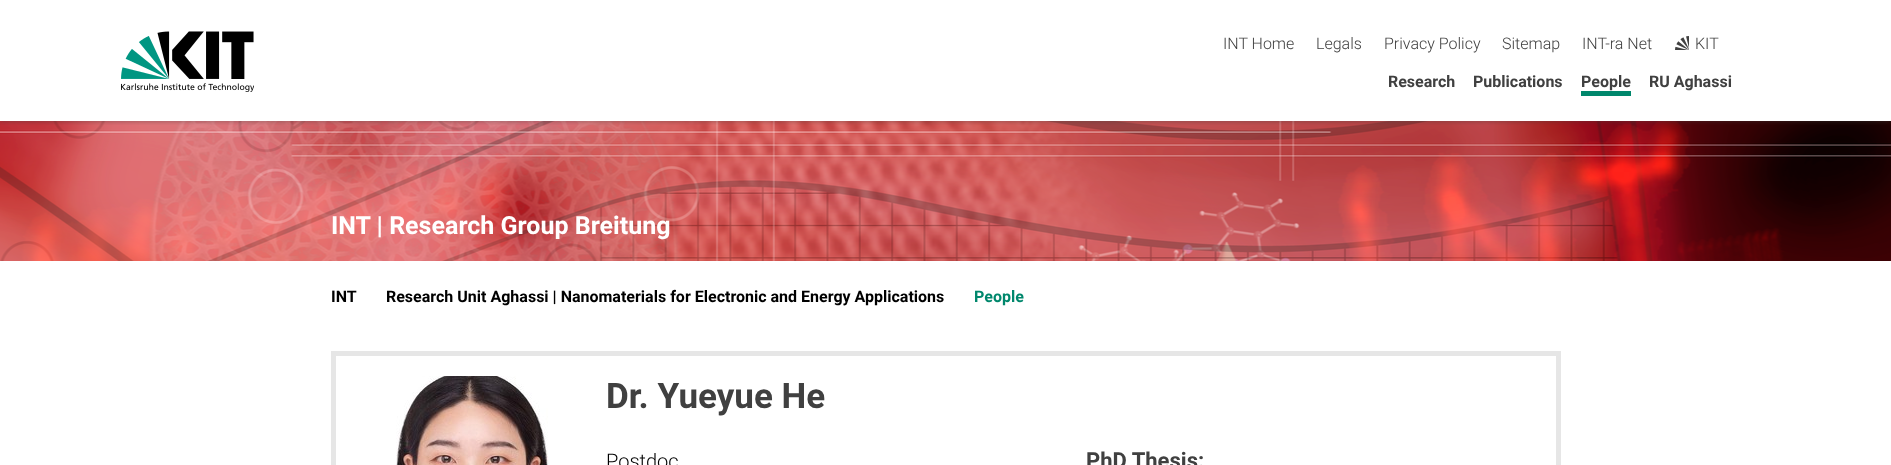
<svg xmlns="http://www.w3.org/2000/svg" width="1891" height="465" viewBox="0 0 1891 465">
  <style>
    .t1 { font: 300 16px Roboto; fill: #404040; }
    .t2 { font: bold 16px Roboto; fill: #404040; }
    .t3 { font: bold 25px Roboto; fill: #fff; }
    .t4 { font: bold 16px Roboto; fill: #000; }
    .t5 { font: bold 16px Roboto; fill: #00876c; }
    .t6 { font: bold 35px Roboto; fill: #404040; }
    .t7 { font: 300 20px Roboto; fill: #000; }
    .t8 { font: bold 22px Roboto; fill: #404040; }
  </style>
  <defs>
    <clipPath id="clip1"><rect x="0" y="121" width="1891" height="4"/></clipPath>
  </defs>
  <rect width="100%" height="100%" fill="#fff"/>
  <image x="0" y="121" width="1891" height="140" href="images/3.png"/>
  <g clip-path="url(#clip1)">
    <rect x="0" y="0" width="1891" height="121" fill="#40404080" filter="blur(2.5px)"/>
  </g>
  <image x="121" y="31" width="133" height="61" href="images/1.png"/>
  <text x="1223" y="49" class="t1">INT Home</text>
  <text x="1316" y="49" class="t1">Legals</text>
  <text x="1384" y="49" class="t1">Privacy Policy</text>
  <text x="1502" y="49" class="t1">Sitemap</text>
  <text x="1582" y="49" class="t1">INT-ra Net</text>
  <image x="1675" y="36" width="14" height="14" href="images/2.png"/>
  <text x="1695" y="49" class="t1">KIT</text>
  <text x="1388" y="87" class="t2">Research</text>
  <text x="1473" y="87" class="t2">Publications</text>
  <text x="1581" y="87" class="t2">People</text>
  <rect x="1581" y="91" width="50" height="5" fill="#00876c"/>
  <text x="1649" y="87" class="t2">RU Aghassi</text>
  <text x="331" y="234" class="t3">INT | Research Group Breitung</text>
  <text x="331" y="302" class="t4">INT</text>
  <text x="386" y="302" class="t4">Research Unit Aghassi | Nanomaterials for Electronic and Energy Applications</text>
  <text x="974" y="302" class="t5">People</text>
  <rect x="333.5" y="353.5" width="1225" height="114" fill="none" stroke="#e6e6e6" stroke-width="5"/>
  <image x="396" y="376" width="153" height="89" href="images/4.png"/>
  <text x="606" y="408" class="t6">Dr. Yueyue He</text>
  <text x="606" y="468" class="t7">Postdoc</text>
  <text x="1086" y="468" class="t8">PhD Thesis:</text>
</svg>
